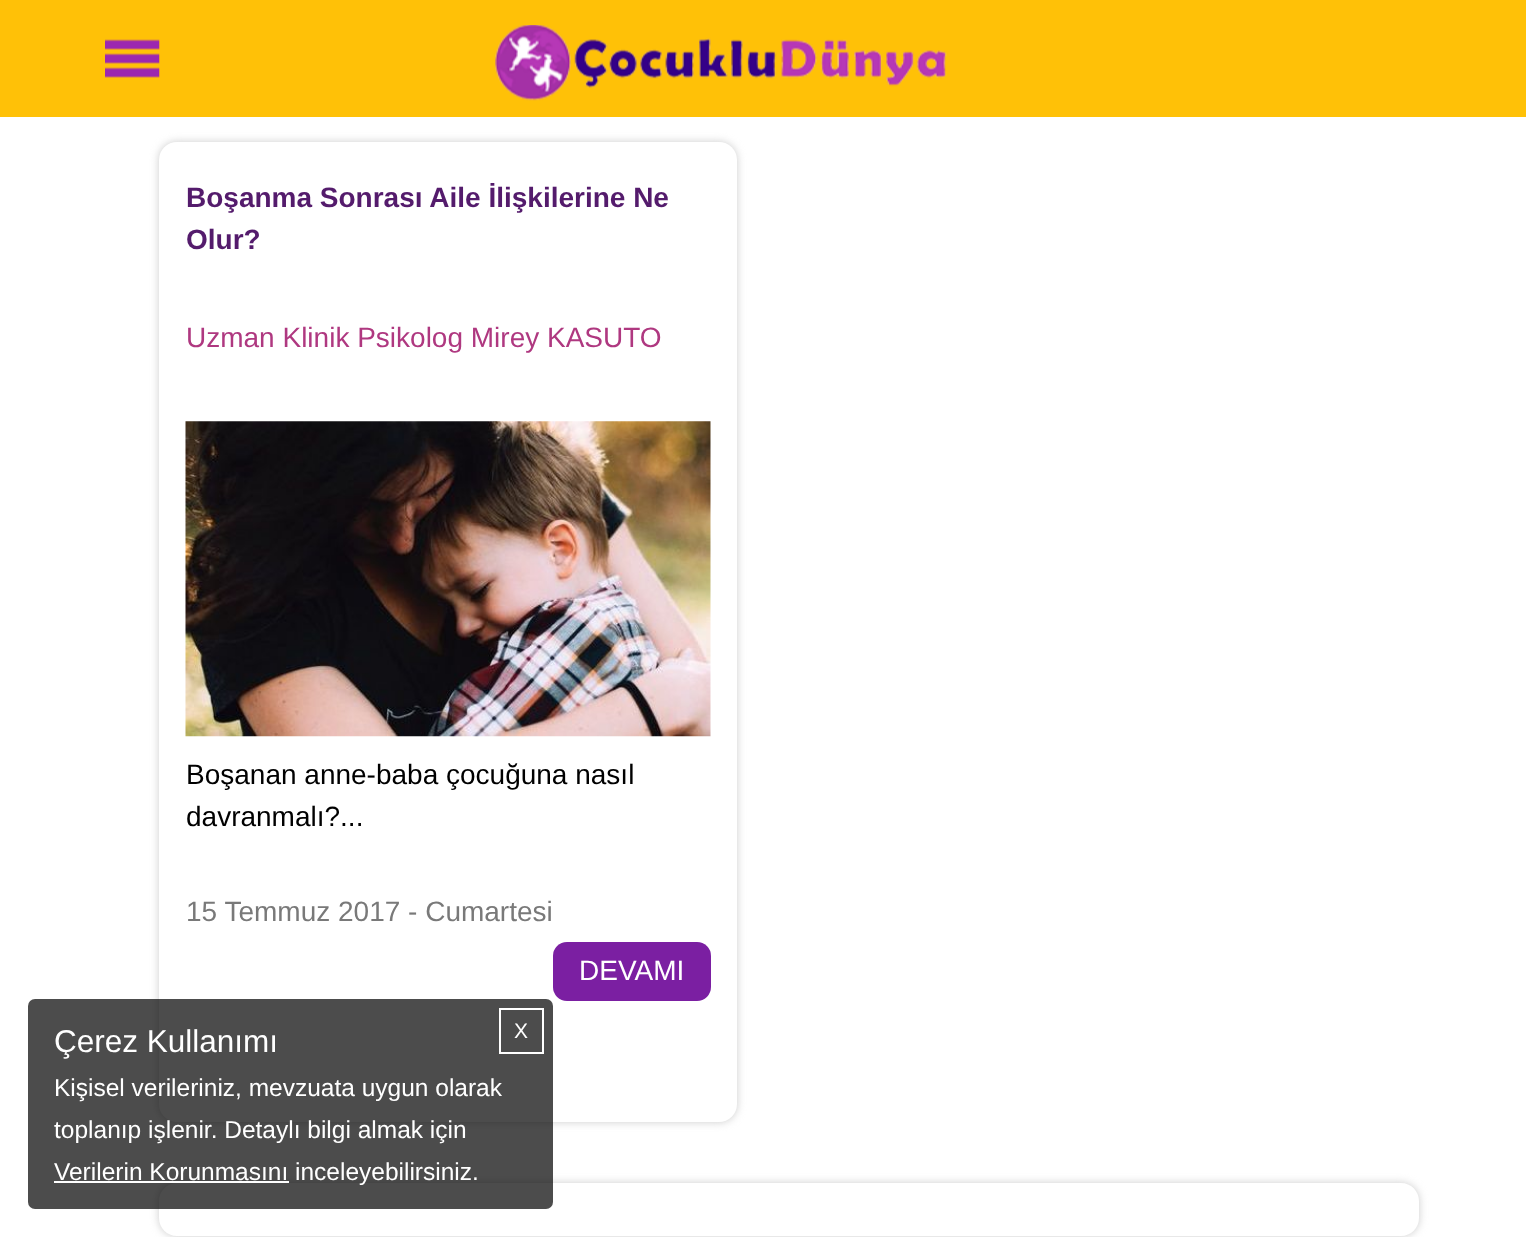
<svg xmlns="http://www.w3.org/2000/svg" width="1526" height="1237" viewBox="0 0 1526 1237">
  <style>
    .t1 { font: bold 28px Liberation Sans; fill: #541b6c; }
    .t2 { font: 28px Liberation Sans; fill: #af3880; }
    .t3 { font: 28px Liberation Sans; fill: #000; }
    .t4 { font: 28px Liberation Sans; fill: #797979; }
    .t5 { font: 28px Liberation Sans; fill: #fff; }
    .t6 { font: 31.5px Liberation Sans; fill: #fff; }
    .t7 { font: 21px Liberation Sans; fill: #fff; }
    .t8 { font: 24.5px Liberation Sans; fill: #fff; }
  </style>
  <defs>
    <clipPath id="clip1"><path d="M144 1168H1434V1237H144ZM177 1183H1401C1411 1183 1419 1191 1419 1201V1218C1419 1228 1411 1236 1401 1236H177C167 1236 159 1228 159 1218V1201C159 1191 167 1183 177 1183Z" clip-rule="evenodd"/></clipPath>
  </defs>
  <rect width="100%" height="100%" fill="#fff"/>
  <rect x="0" y="0" width="1526" height="117" fill="#ffc107"/>
  <image x="105" y="39" width="55" height="39" href="images/1.png"/>
  <image x="495" y="25" width="452" height="76" href="images/2.png"/>
  <rect x="159" y="142" width="578" height="980" rx="18" fill="#ccc" filter="blur(4.5px)"/>
  <rect x="159" y="142" width="578" height="980" rx="18" fill="#fff"/>
  <text x="186" y="207" class="t1">Boşanma Sonrası Aile İlişkilerine Ne</text>
  <text x="186" y="249" class="t1">Olur?</text>
  <text x="186" y="347" class="t2">Uzman Klinik Psikolog Mirey KASUTO</text>
  <image x="185" y="421" width="526" height="316" href="images/3.png"/>
  <text x="186" y="784" class="t3">Boşanan anne-baba çocuğuna nasıl</text>
  <text x="186" y="826" class="t3">davranmalı?...</text>
  <text x="186" y="921" class="t4">15 Temmuz 2017 - Cumartesi</text>
  <rect x="553" y="942" width="158" height="59" rx="14" fill="#7b1fa2"/>
  <text x="579" y="980" class="t5">DEVAMI</text>
  <g clip-path="url(#clip1)">
    <rect x="159" y="1183" width="1260" height="53" rx="18" fill="#ccc" filter="blur(4.5px)"/>
  </g>
  <rect x="28" y="999" width="525" height="210" rx="7" fill="#000000b3"/>
  <text x="54" y="1052" class="t6">Çerez Kullanımı</text>
  <rect x="500" y="1009" width="43" height="44" fill="none" stroke="#fff" stroke-width="2"/>
  <text x="514" y="1038" class="t7">X</text>
  <text x="54" y="1096" class="t8">Kişisel verileriniz, mevzuata uygun olarak</text>
  <text x="54" y="1138" class="t8">toplanıp işlenir. Detaylı bilgi almak için</text>
  <rect x="54" y="1181" width="235" height="2" fill="#fff"/>
  <text x="54" y="1180" class="t8">Verilerin Korunmasını inceleyebilirsiniz.</text>
</svg>
